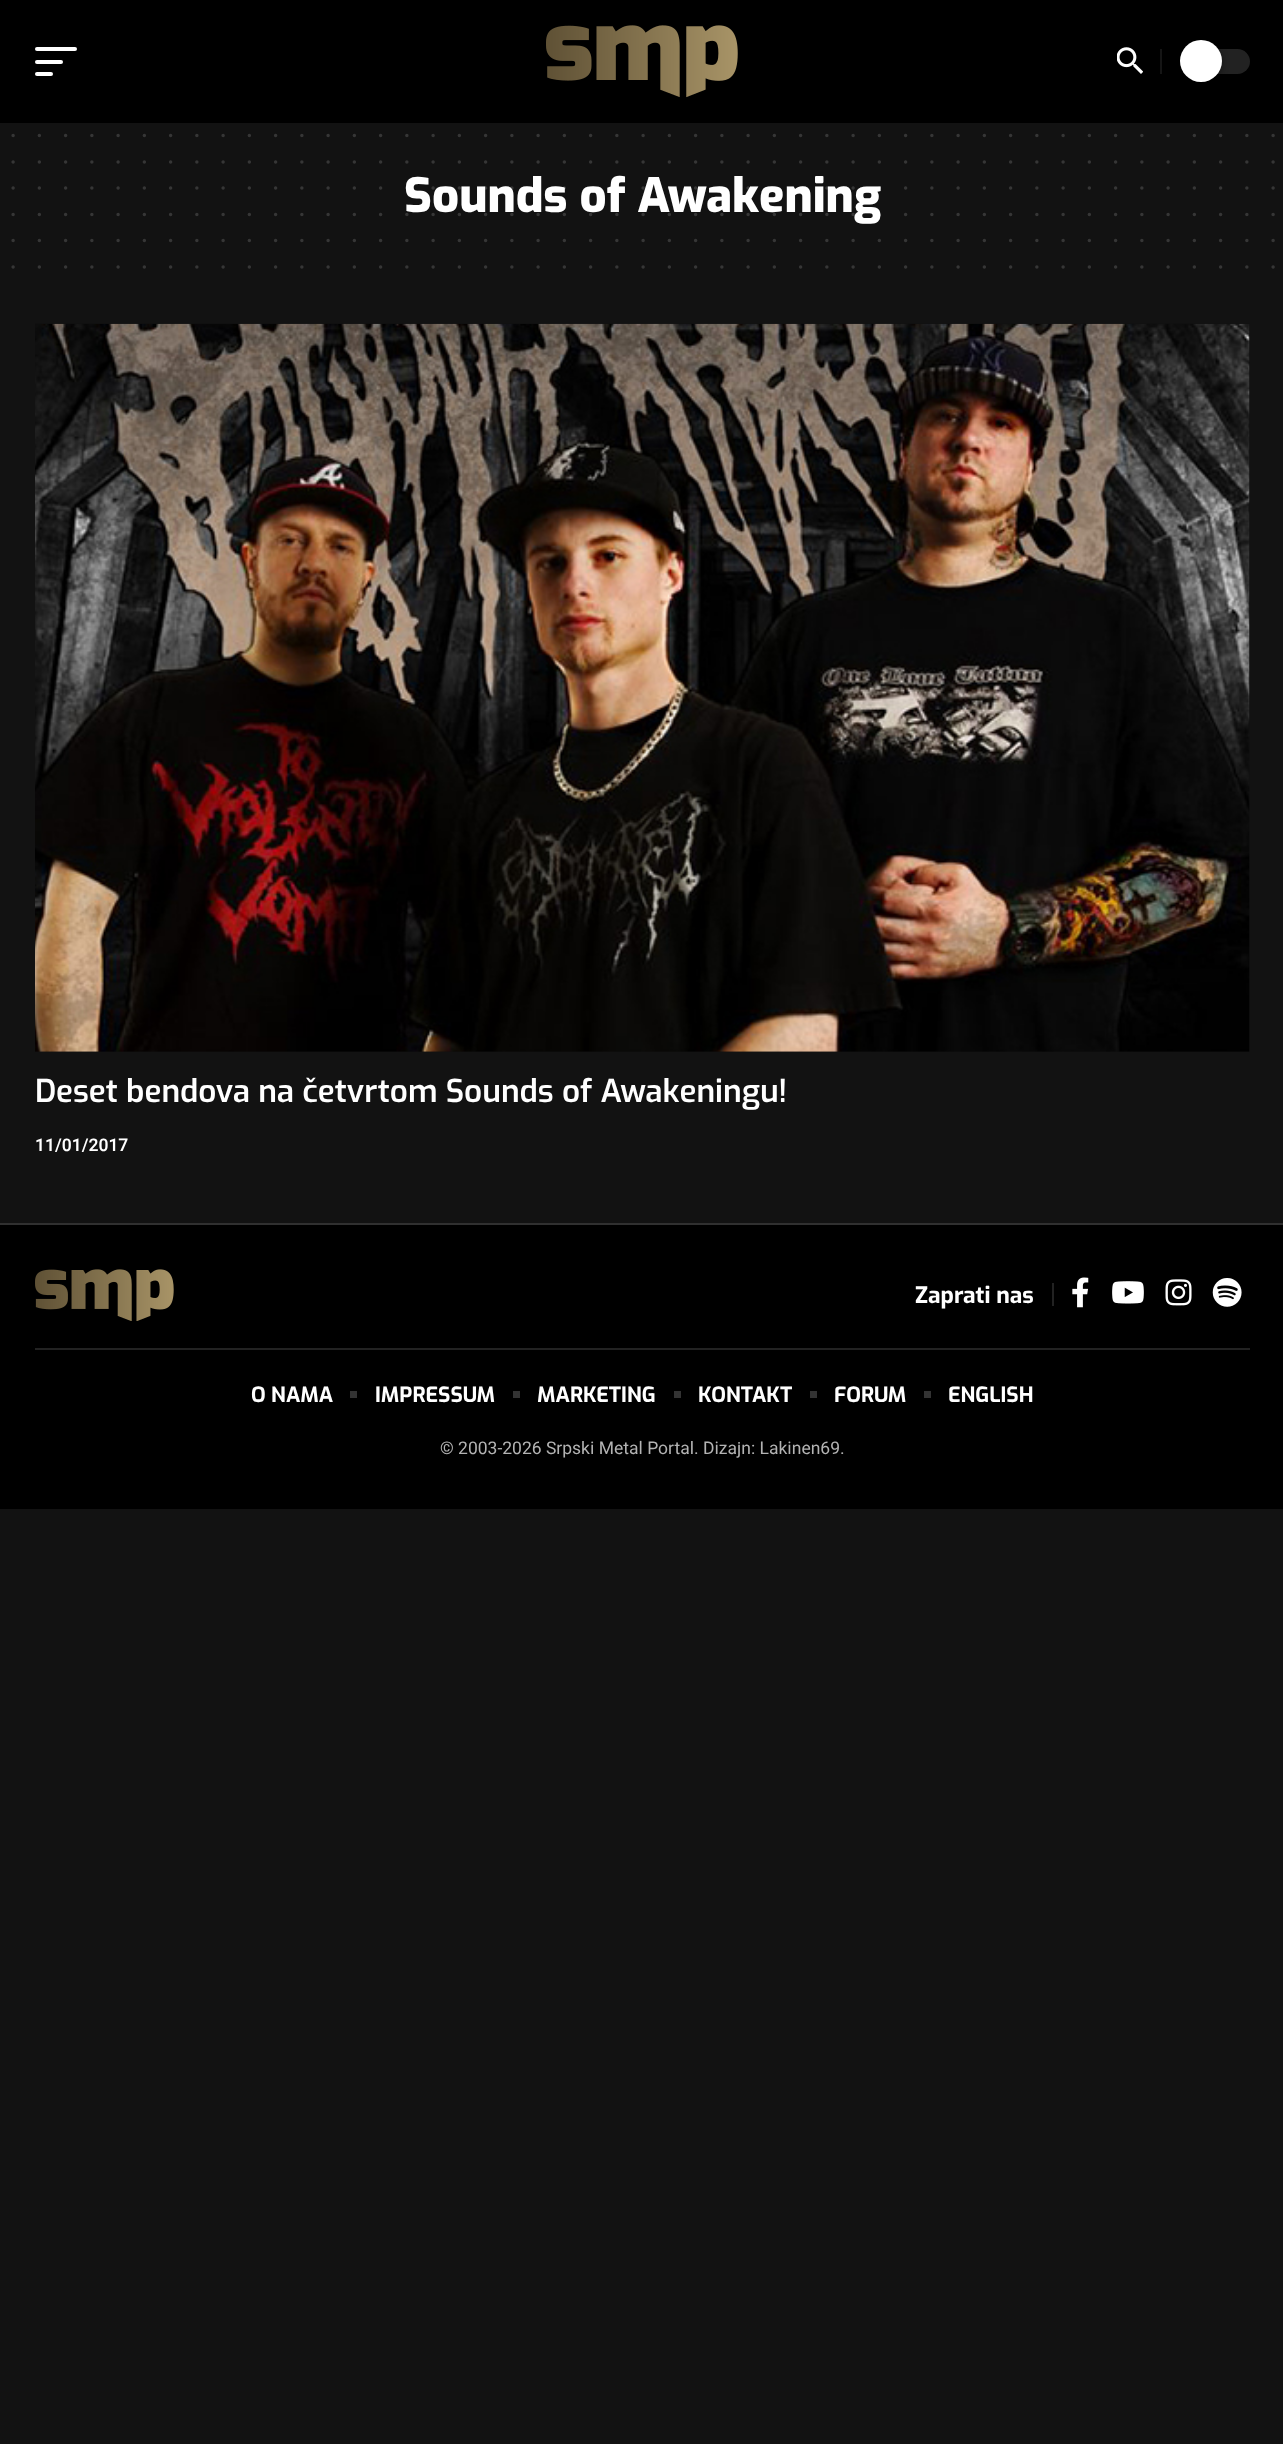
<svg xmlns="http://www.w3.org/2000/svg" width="1283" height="2444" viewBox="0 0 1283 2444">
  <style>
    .t1 { font: 800 47.25px Exo; fill: #fff; }
    .t2 { font: 600 31.5px Exo; fill: #fff; }
    .t3 { font: 600 17.5px Heebo; fill: #fff; }
    .t4 { font: bold 22.75px Exo; fill: #fff; }
    .t5 { font: bold 21px Exo; fill: #fff; }
    .t6 { font: 17.5px Heebo; fill: #b3b3b3; }
  </style>
  <rect width="100%" height="100%" fill="#121212"/>
  <rect x="0" y="0" width="1283" height="123" fill="#000"/>
  <rect x="35" y="47" width="42" height="4" rx="2" fill="#fff"/>
  <rect x="35" y="60" width="28" height="4" rx="2" fill="#fff"/>
  <rect x="35" y="72" width="18" height="4" rx="2" fill="#fff"/>
  <image x="546" y="25" width="192" height="73" href="images/1.png"/>
  <image x="1117" y="47" width="26" height="27" href="images/2.png"/>
  <rect x="1160" y="49" width="2" height="25" fill="#151515"/>
  <rect x="1180" y="49" width="70" height="25" rx="12.5" fill="#222"/>
  <rect x="1180" y="42" width="42" height="42" rx="21" fill="#00000066" filter="blur(3.5px)"/>
  <circle cx="1201" cy="61" r="21" fill="#fff"/>
  <path d="M13.1 135.6H1273.5" fill="none" stroke="#363636" stroke-width="3.5" stroke-linecap="round" stroke-dasharray="0 26.25"/>
  <path d="M13.1 161.9H1273.5" fill="none" stroke="#363636" stroke-width="3.5" stroke-linecap="round" stroke-dasharray="0 26.25"/>
  <path d="M13.1 188.1H1273.5" fill="none" stroke="#363636" stroke-width="3.5" stroke-linecap="round" stroke-dasharray="0 26.25"/>
  <path d="M13.1 214.4H1273.5" fill="none" stroke="#363636" stroke-width="3.5" stroke-linecap="round" stroke-dasharray="0 26.25"/>
  <path d="M13.1 240.6H1273.5" fill="none" stroke="#363636" stroke-width="3.5" stroke-linecap="round" stroke-dasharray="0 26.25"/>
  <path d="M13.1 266.9H1273.5" fill="none" stroke="#363636" stroke-width="3.5" stroke-linecap="round" stroke-dasharray="0 26.25"/>
  <text x="404" y="212" class="t1">Sounds of Awakening</text>
  <image x="35" y="323" width="1215" height="729" href="images/3.png"/>
  <text x="35" y="1102" class="t2">Deset bendova na četvrtom Sounds of Awakeningu!</text>
  <text x="35" y="1151" class="t3">11/01/2017</text>
  <rect x="0" y="1223" width="1283" height="2" fill="#303030"/>
  <rect x="0" y="1225" width="1283" height="284" fill="#000"/>
  <image x="35" y="1269" width="139" height="52" href="images/4.png"/>
  <rect x="1052" y="1283" width="2" height="23" fill="#222"/>
  <text x="915" y="1303" class="t4">Zaprati nas</text>
  <image x="1072" y="1277" width="17" height="31" href="images/5.png"/>
  <image x="1112" y="1281" width="32" height="23" href="images/6.png"/>
  <image x="1165" y="1279" width="27" height="27" href="images/7.png"/>
  <image x="1212" y="1278" width="30" height="29" href="images/8.png"/>
  <rect x="35" y="1348" width="1215" height="2" fill="#222"/>
  <text x="251" y="1402" class="t5">O NAMA</text>
  <rect x="350" y="1391" width="7" height="7" fill="#333"/>
  <text x="375" y="1402" class="t5">IMPRESSUM</text>
  <rect x="513" y="1391" width="7" height="7" fill="#333"/>
  <text x="537" y="1402" class="t5">MARKETING</text>
  <rect x="674" y="1391" width="7" height="7" fill="#333"/>
  <text x="698" y="1402" class="t5">KONTAKT</text>
  <rect x="810" y="1391" width="7" height="7" fill="#333"/>
  <text x="834" y="1402" class="t5">FORUM</text>
  <rect x="924" y="1391" width="7" height="7" fill="#333"/>
  <text x="948" y="1402" class="t5">ENGLISH</text>
  <text x="440" y="1454" class="t6">© 2003-2026 Srpski Metal Portal. Dizajn: Lakinen69.</text>
</svg>
